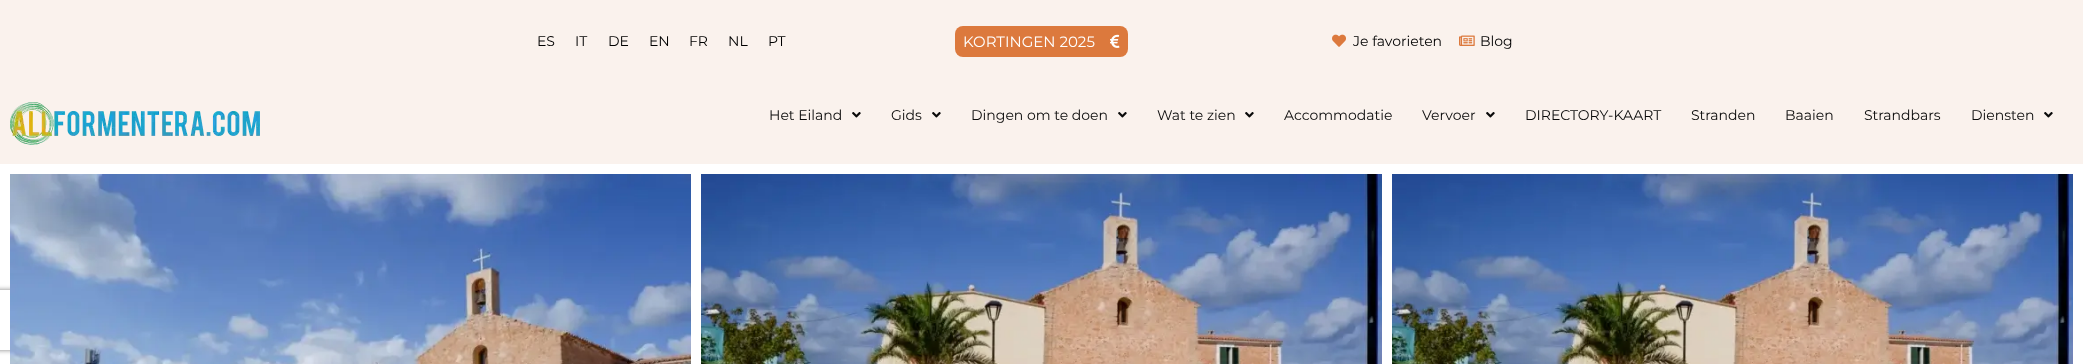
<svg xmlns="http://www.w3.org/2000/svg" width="2083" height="364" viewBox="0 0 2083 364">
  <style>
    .t1 { font: 14px Montserrat; fill: #000; }
    .t2 { font: 15px Montserrat; fill: #fff; }
    .t3 { font: 14px Montserrat; fill: #0a0a0a; }
  </style>
  <defs>
    <clipPath id="clip1"><path d="M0 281H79V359H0ZM-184 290H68C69 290 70 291 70 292V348C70 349 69 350 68 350H-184C-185 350-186 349-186 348V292C-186 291-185 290-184 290Z" clip-rule="evenodd"/></clipPath>
  </defs>
  <rect width="100%" height="100%" fill="#fff"/>
  <rect x="0" y="0" width="2083" height="164" fill="#faf2ed"/>
  <text x="537" y="46" class="t1">ES</text>
  <text x="575" y="46" class="t1">IT</text>
  <text x="608" y="46" class="t1">DE</text>
  <text x="649" y="46" class="t1">EN</text>
  <text x="689" y="46" class="t1">FR</text>
  <text x="728" y="46" class="t1">NL</text>
  <text x="768" y="46" class="t1">PT</text>
  <rect x="955" y="26" width="173" height="31" rx="8" fill="#dc793d"/>
  <text x="963" y="47" class="t2">KORTINGEN 2025</text>
  <image x="1110" y="34" width="10" height="14" href="images/1.png"/>
  <image x="1332" y="34" width="14" height="13" href="images/2.png"/>
  <text x="1353" y="46" class="t1">Je favorieten</text>
  <image x="1459" y="35" width="16" height="11" href="images/3.png"/>
  <text x="1480" y="46" class="t1">Blog</text>
  <image x="10" y="102" width="250" height="43" href="images/4.png"/>
  <text x="769" y="120" class="t3">Het Eiland</text>
  <image x="852" y="112" width="9" height="6" href="images/5.png"/>
  <text x="891" y="120" class="t3">Gids</text>
  <image x="932" y="112" width="9" height="6" href="images/5.png"/>
  <text x="971" y="120" class="t3">Dingen om te doen</text>
  <image x="1118" y="112" width="9" height="6" href="images/5.png"/>
  <text x="1157" y="120" class="t3">Wat te zien</text>
  <image x="1245" y="112" width="9" height="6" href="images/5.png"/>
  <text x="1284" y="120" class="t3">Accommodatie</text>
  <text x="1422" y="120" class="t3">Vervoer</text>
  <image x="1486" y="112" width="9" height="6" href="images/5.png"/>
  <text x="1525" y="120" class="t3">DIRECTORY-KAART</text>
  <text x="1691" y="120" class="t3">Stranden</text>
  <text x="1785" y="120" class="t3">Baaien</text>
  <text x="1864" y="120" class="t3">Strandbars</text>
  <text x="1971" y="120" class="t3">Diensten</text>
  <image x="2044" y="112" width="9" height="6" href="images/5.png"/>
  <g clip-path="url(#clip1)">
    <rect x="-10" y="290" width="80" height="60" rx="2" fill="#808080" filter="blur(2.5px)"/>
  </g>
  <image x="10" y="174" width="681" height="190" href="images/6.png"/>
  <image x="701" y="174" width="681" height="190" href="images/7.png"/>
  <image x="1392" y="174" width="681" height="190" href="images/8.png"/>
</svg>
